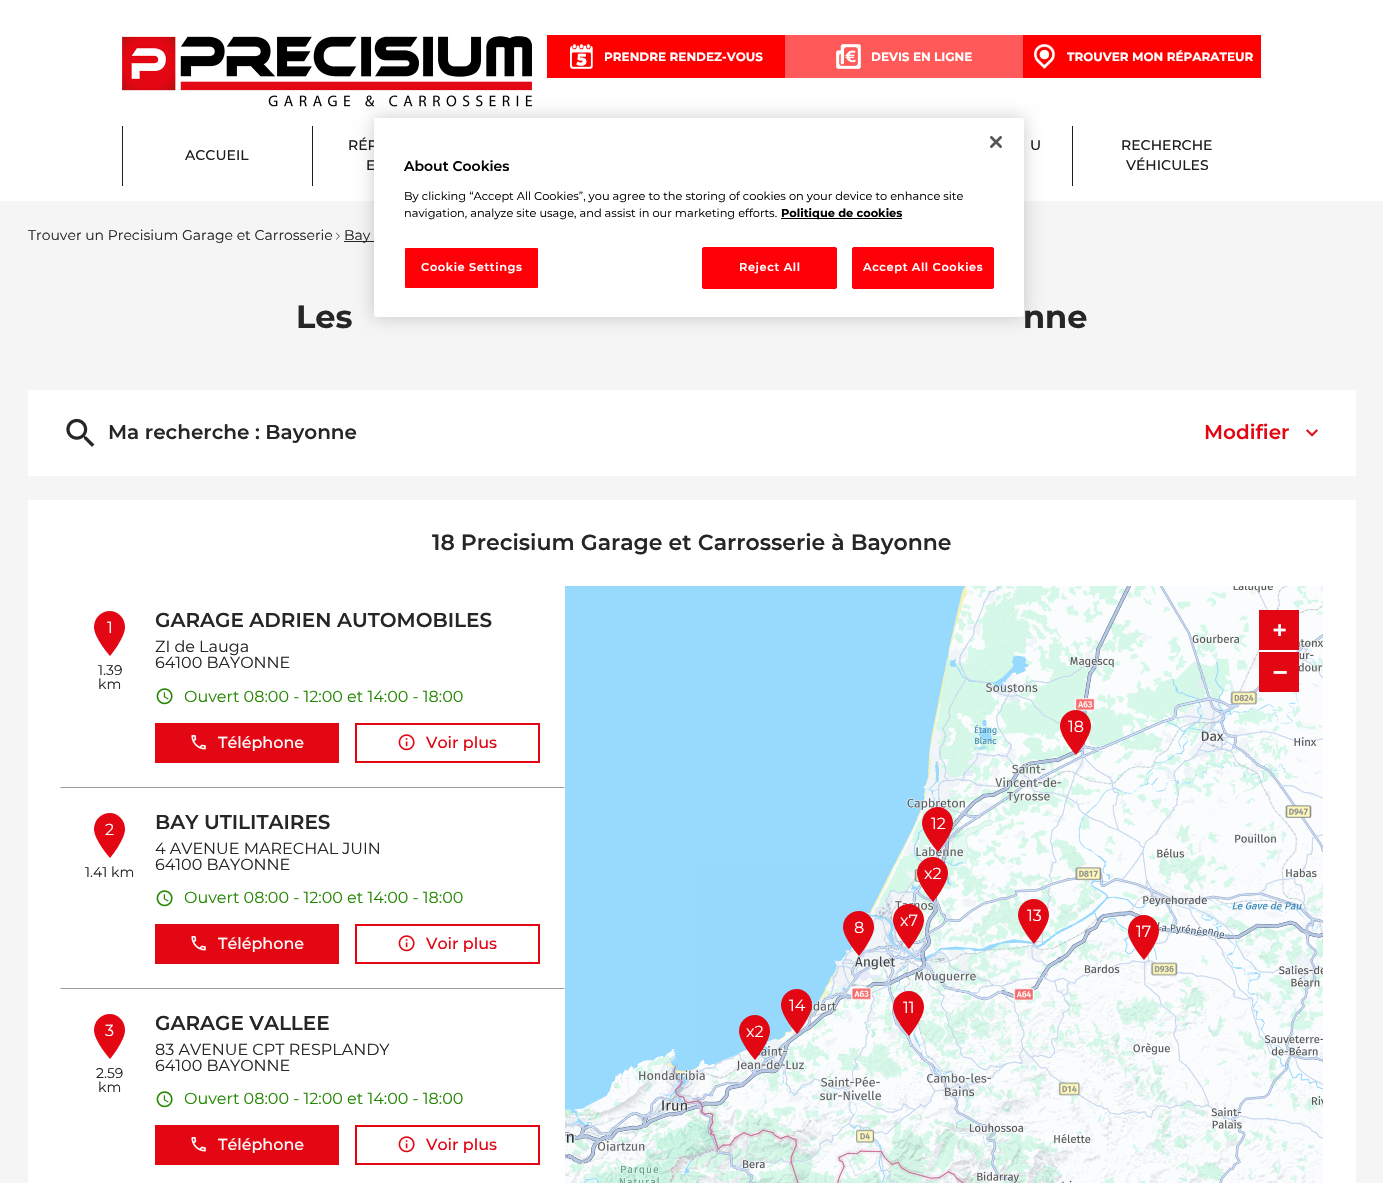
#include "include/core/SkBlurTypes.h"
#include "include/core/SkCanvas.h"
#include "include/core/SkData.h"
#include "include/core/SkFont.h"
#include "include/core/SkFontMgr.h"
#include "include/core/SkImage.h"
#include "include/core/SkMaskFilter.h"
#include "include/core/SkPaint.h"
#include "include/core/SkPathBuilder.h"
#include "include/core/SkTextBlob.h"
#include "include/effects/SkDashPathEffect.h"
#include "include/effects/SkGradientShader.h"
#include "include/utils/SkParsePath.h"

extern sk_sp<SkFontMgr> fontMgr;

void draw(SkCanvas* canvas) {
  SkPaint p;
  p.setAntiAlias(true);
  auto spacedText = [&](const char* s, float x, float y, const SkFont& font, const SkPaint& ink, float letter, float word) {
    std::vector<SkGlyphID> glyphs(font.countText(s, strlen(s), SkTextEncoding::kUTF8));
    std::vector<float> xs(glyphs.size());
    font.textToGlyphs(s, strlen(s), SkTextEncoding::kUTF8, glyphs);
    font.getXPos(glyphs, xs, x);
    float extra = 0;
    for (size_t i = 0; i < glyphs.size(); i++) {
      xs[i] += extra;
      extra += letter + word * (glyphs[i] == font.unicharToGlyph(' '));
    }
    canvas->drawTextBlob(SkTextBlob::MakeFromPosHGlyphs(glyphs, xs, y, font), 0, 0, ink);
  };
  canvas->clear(SkColorSetRGB(245, 245, 245));
  p.setColor(SK_ColorWHITE);
  canvas->drawRect(SkRect::MakeLTRB(0, 0, 1383, 201), p);
  canvas->drawImageRect(SkImages::DeferredFromEncodedData(SkData::MakeFromFileName("images/1.png")), SkRect::MakeLTRB(122, 36, 532, 107), SkSamplingOptions());
  p.setColor(SkColorSetRGB(255, 0, 0));
  canvas->drawRect(SkRect::MakeLTRB(547, 35, 785, 78), p);
  canvas->drawImageRect(SkImages::DeferredFromEncodedData(SkData::MakeFromFileName("images/2.png")), SkRect::MakeLTRB(570, 44, 593, 69), SkSamplingOptions());
  p.setColor(SkColorSetRGB(255, 89, 89));
  canvas->drawRect(SkRect::MakeLTRB(785, 35, 1023, 78), p);
  canvas->drawImageRect(SkImages::DeferredFromEncodedData(SkData::MakeFromFileName("images/3.png")), SkRect::MakeLTRB(836, 44, 861, 69), SkSamplingOptions());
  p.setColor(SkColorSetRGB(255, 0, 0));
  canvas->drawRect(SkRect::MakeLTRB(1023, 35, 1261, 78), p);
  canvas->drawImageRect(SkImages::DeferredFromEncodedData(SkData::MakeFromFileName("images/4.png")), SkRect::MakeLTRB(1034, 44, 1055, 69), SkSamplingOptions());
  p.setColor(SkColorSetRGB(29, 29, 27));
  canvas->drawRect(SkRect::MakeLTRB(122, 126, 123, 186), p);
  canvas->drawRect(SkRect::MakeLTRB(312, 126, 313, 186), p);
  canvas->drawRect(SkRect::MakeLTRB(1072, 126, 1073, 186), p);
  canvas->drawImageRect(SkImages::DeferredFromEncodedData(SkData::MakeFromFileName("images/5.png")), SkRect::MakeLTRB(336, 232, 340, 240), SkSamplingOptions());
  p.setColor(SkColorSetRGB(38, 38, 38));
  canvas->drawRect(SkRect::MakeLTRB(344, 241, 374, 242), p);
  p.setColor(SK_ColorWHITE);
  canvas->drawRect(SkRect::MakeLTRB(28, 390, 1356, 476), p);
  canvas->drawImageRect(SkImages::DeferredFromEncodedData(SkData::MakeFromFileName("images/6.png")), SkRect::MakeLTRB(66, 418, 95, 447), SkSamplingOptions());
  canvas->drawImageRect(SkImages::DeferredFromEncodedData(SkData::MakeFromFileName("images/7.png")), SkRect::MakeLTRB(1306, 429, 1318, 437), SkSamplingOptions());
  canvas->drawRect(SkRect::MakeLTRB(28, 500, 1356, 1183), p);
  p.setColor(SkColorSetRGB(157, 157, 157));
  canvas->drawPath(SkPathBuilder().moveTo(565, 788).lineTo(60, 788).lineTo(61, 787).lineTo(564, 787).close().detach(), p);
  p.setColor(SkColorSetRGB(227, 6, 19));
  canvas->drawPath(SkPathBuilder().moveTo(110, 611).cubicTo(101, 611, 94, 618, 94, 627).cubicTo(94, 638, 110, 656, 110, 656).cubicTo(110, 656, 125, 638, 125, 627).cubicTo(125, 618, 118, 611, 110, 611).close().detach(), p);
  canvas->drawImageRect(SkImages::DeferredFromEncodedData(SkData::MakeFromFileName("images/8.png")), SkRect::MakeLTRB(156, 688, 173, 705), SkSamplingOptions());
  canvas->drawRect(SkRect::MakeLTRB(155, 723, 339, 763), p);
  canvas->drawImageRect(SkImages::DeferredFromEncodedData(SkData::MakeFromFileName("images/9.png")), SkRect::MakeLTRB(191, 735, 206, 750), SkSamplingOptions());
  p.setStyle(SkPaint::kStroke_Style);
  p.setStrokeWidth(2);
  canvas->drawRect(SkRect::MakeLTRB(356, 724, 539, 762), p);
  canvas->drawImageRect(SkImages::DeferredFromEncodedData(SkData::MakeFromFileName("images/10.png")), SkRect::MakeLTRB(398, 734, 415, 751), SkSamplingOptions());
  p.setStyle(SkPaint::kFill_Style);
  p.setColor(SkColorSetRGB(157, 157, 157));
  canvas->drawPath(SkPathBuilder().moveTo(565, 989).lineTo(60, 989).lineTo(61, 988).lineTo(564, 988).close().detach(), p);
  p.setColor(SkColorSetRGB(227, 6, 19));
  canvas->drawPath(SkPathBuilder().moveTo(110, 813).cubicTo(101, 813, 94, 820, 94, 829).cubicTo(94, 840, 110, 858, 110, 858).cubicTo(110, 858, 125, 840, 125, 829).cubicTo(125, 820, 118, 813, 110, 813).close().detach(), p);
  canvas->drawImageRect(SkImages::DeferredFromEncodedData(SkData::MakeFromFileName("images/8.png")), SkRect::MakeLTRB(156, 890, 173, 907), SkSamplingOptions());
  canvas->drawRect(SkRect::MakeLTRB(155, 924, 339, 964), p);
  canvas->drawImageRect(SkImages::DeferredFromEncodedData(SkData::MakeFromFileName("images/9.png")), SkRect::MakeLTRB(191, 936, 206, 951), SkSamplingOptions());
  p.setStyle(SkPaint::kStroke_Style);
  canvas->drawRect(SkRect::MakeLTRB(356, 925, 539, 963), p);
  canvas->drawImageRect(SkImages::DeferredFromEncodedData(SkData::MakeFromFileName("images/10.png")), SkRect::MakeLTRB(398, 935, 415, 952), SkSamplingOptions());
  p.setStyle(SkPaint::kFill_Style);
  canvas->drawPath(SkPathBuilder().moveTo(110, 1014).cubicTo(101, 1014, 94, 1021, 94, 1030).cubicTo(94, 1041, 110, 1059, 110, 1059).cubicTo(110, 1059, 125, 1041, 125, 1030).cubicTo(125, 1021, 118, 1014, 110, 1014).close().detach(), p);
  canvas->drawImageRect(SkImages::DeferredFromEncodedData(SkData::MakeFromFileName("images/8.png")), SkRect::MakeLTRB(156, 1091, 173, 1108), SkSamplingOptions());
  canvas->drawRect(SkRect::MakeLTRB(155, 1125, 339, 1165), p);
  canvas->drawImageRect(SkImages::DeferredFromEncodedData(SkData::MakeFromFileName("images/9.png")), SkRect::MakeLTRB(191, 1137, 206, 1152), SkSamplingOptions());
  p.setStyle(SkPaint::kStroke_Style);
  canvas->drawRect(SkRect::MakeLTRB(356, 1126, 539, 1164), p);
  canvas->drawImageRect(SkImages::DeferredFromEncodedData(SkData::MakeFromFileName("images/10.png")), SkRect::MakeLTRB(398, 1136, 415, 1153), SkSamplingOptions());
  canvas->drawImageRect(SkImages::DeferredFromEncodedData(SkData::MakeFromFileName("images/15.png")), SkRect::MakeLTRB(1210, 608, 1323, 864), SkSamplingOptions());
  p.setStyle(SkPaint::kFill_Style);
  canvas->drawRect(SkRect::MakeLTRB(1259, 610, 1299, 650), p);
  canvas->drawRect(SkRect::MakeLTRB(1259, 652, 1299, 692), p);
  p.setColor(SkColorSetRGB(151, 218, 254));
  canvas->drawRect(SkRect::MakeLTRB(565, 586, 698, 864), p);
  canvas->drawRect(SkRect::MakeLTRB(698, 586, 954, 608), p);
  canvas->drawImageRect(SkImages::DeferredFromEncodedData(SkData::MakeFromFileName("images/11.png")), SkRect::MakeLTRB(954, 586, 1210, 608), SkSamplingOptions());
  canvas->drawImageRect(SkImages::DeferredFromEncodedData(SkData::MakeFromFileName("images/12.png")), SkRect::MakeLTRB(1210, 586, 1323, 608), SkSamplingOptions());
  canvas->drawImageRect(SkImages::DeferredFromEncodedData(SkData::MakeFromFileName("images/13.png")), SkRect::MakeLTRB(698, 608, 954, 864), SkSamplingOptions());
  canvas->drawImageRect(SkImages::DeferredFromEncodedData(SkData::MakeFromFileName("images/14.png")), SkRect::MakeLTRB(954, 608, 1210, 864), SkSamplingOptions());
  canvas->drawImageRect(SkImages::DeferredFromEncodedData(SkData::MakeFromFileName("images/16.png")), SkRect::MakeLTRB(565, 864, 698, 1120), SkSamplingOptions());
  canvas->drawImageRect(SkImages::DeferredFromEncodedData(SkData::MakeFromFileName("images/17.png")), SkRect::MakeLTRB(698, 864, 954, 1120), SkSamplingOptions());
  canvas->drawImageRect(SkImages::DeferredFromEncodedData(SkData::MakeFromFileName("images/18.png")), SkRect::MakeLTRB(954, 864, 1210, 1120), SkSamplingOptions());
  canvas->drawImageRect(SkImages::DeferredFromEncodedData(SkData::MakeFromFileName("images/19.png")), SkRect::MakeLTRB(1210, 864, 1323, 1120), SkSamplingOptions());
  canvas->drawImageRect(SkImages::DeferredFromEncodedData(SkData::MakeFromFileName("images/20.png")), SkRect::MakeLTRB(565, 1120, 698, 1183), SkSamplingOptions());
  canvas->drawImageRect(SkImages::DeferredFromEncodedData(SkData::MakeFromFileName("images/21.png")), SkRect::MakeLTRB(698, 1120, 954, 1183), SkSamplingOptions());
  canvas->drawImageRect(SkImages::DeferredFromEncodedData(SkData::MakeFromFileName("images/22.png")), SkRect::MakeLTRB(954, 1120, 1210, 1183), SkSamplingOptions());
  canvas->drawImageRect(SkImages::DeferredFromEncodedData(SkData::MakeFromFileName("images/23.png")), SkRect::MakeLTRB(1210, 1120, 1323, 1183), SkSamplingOptions());
  p.setColor(SkColorSetRGB(227, 6, 19));
  canvas->drawPath(SkPathBuilder().moveTo(1076, 710).cubicTo(1067, 710, 1060, 717, 1060, 726).cubicTo(1060, 737, 1076, 755, 1076, 755).cubicTo(1076, 755, 1091, 737, 1091, 726).cubicTo(1091, 717, 1084, 710, 1076, 710).close().detach(), p);
  canvas->drawPath(SkPathBuilder().moveTo(938, 807).cubicTo(929, 807, 922, 814, 922, 823).cubicTo(922, 834, 938, 852, 938, 852).cubicTo(938, 852, 953, 834, 953, 823).cubicTo(953, 814, 946, 807, 938, 807).close().detach(), p);
  canvas->drawPath(SkPathBuilder().moveTo(933, 857).cubicTo(924, 857, 917, 864, 917, 873).cubicTo(917, 884, 933, 902, 933, 902).cubicTo(933, 902, 948, 884, 948, 873).cubicTo(948, 864, 941, 857, 933, 857).close().detach(), p);
  canvas->drawPath(SkPathBuilder().moveTo(859, 911).cubicTo(850, 911, 843, 918, 843, 927).cubicTo(843, 938, 859, 956, 859, 956).cubicTo(859, 956, 874, 938, 874, 927).cubicTo(874, 918, 867, 911, 859, 911).close().detach(), p);
  canvas->drawPath(SkPathBuilder().moveTo(909, 904).cubicTo(900, 904, 893, 911, 893, 920).cubicTo(893, 931, 909, 949, 909, 949).cubicTo(909, 949, 924, 931, 924, 920).cubicTo(924, 911, 917, 904, 909, 904).close().detach(), p);
  canvas->drawPath(SkPathBuilder().moveTo(1034, 899).cubicTo(1025, 899, 1018, 906, 1018, 915).cubicTo(1018, 926, 1034, 944, 1034, 944).cubicTo(1034, 944, 1049, 926, 1049, 915).cubicTo(1049, 906, 1042, 899, 1034, 899).close().detach(), p);
  canvas->drawPath(SkPathBuilder().moveTo(1144, 915).cubicTo(1135, 915, 1128, 922, 1128, 931).cubicTo(1128, 942, 1144, 960, 1144, 960).cubicTo(1144, 960, 1159, 942, 1159, 931).cubicTo(1159, 922, 1152, 915, 1144, 915).close().detach(), p);
  canvas->drawPath(SkPathBuilder().moveTo(797, 989).cubicTo(788, 989, 781, 996, 781, 1005).cubicTo(781, 1016, 797, 1034, 797, 1034).cubicTo(797, 1034, 812, 1016, 812, 1005).cubicTo(812, 996, 805, 989, 797, 989).close().detach(), p);
  canvas->drawPath(SkPathBuilder().moveTo(909, 991).cubicTo(900, 991, 893, 998, 893, 1007).cubicTo(893, 1018, 909, 1036, 909, 1036).cubicTo(909, 1036, 924, 1018, 924, 1007).cubicTo(924, 998, 917, 991, 909, 991).close().detach(), p);
  canvas->drawPath(SkPathBuilder().moveTo(755, 1015).cubicTo(746, 1015, 739, 1022, 739, 1031).cubicTo(739, 1042, 755, 1060, 755, 1060).cubicTo(755, 1060, 770, 1042, 770, 1031).cubicTo(770, 1022, 763, 1015, 755, 1015).close().detach(), p);
  p.setColor(SkColorSetARGB(51, 0, 0, 0));
  p.setMaskFilter(SkMaskFilter::MakeBlur(kNormal_SkBlurStyle, 9));
  canvas->drawRoundRect(SkRect::MakeLTRB(374, 118, 1024, 317), 2.5f, 2.5f, p);
  p.setMaskFilter(nullptr);
  SkFont font1(fontMgr->matchFamilyStyle("Montserrat", SkFontStyle::Bold()), 12);
  font1.setSubpixel(true);
  p.setColor(SK_ColorWHITE);
  canvas->drawString("PRENDRE RENDEZ-VOUS", 604, 61, font1, p);
  canvas->drawString("DEVIS EN LIGNE", 871, 61, font1, p);
  canvas->drawString("TROUVER MON RÉPARATEUR", 1067, 61, font1, p);
  SkFont font2(fontMgr->matchFamilyStyle("Montserrat", SkFontStyle(500, SkFontStyle::kNormal_Width, SkFontStyle::kUpright_Slant)), 14);
  font2.setSubpixel(true);
  p.setColor(SkColorSetRGB(29, 29, 27));
  canvas->drawString("ACCUEIL", 185, 160, font2, p);
  canvas->drawString("RÉP", 348, 150, font2, p);
  canvas->drawString("E", 366, 170, font2, p);
  canvas->drawString("U", 1030, 150, font2, p);
  canvas->drawString("RECHERCHE", 1121, 150, font2, p);
  canvas->drawString("VÉHICULES", 1126, 170, font2, p);
  SkFont font3(fontMgr->matchFamilyStyle("Montserrat", SkFontStyle::Normal()), 14);
  font3.setSubpixel(true);
  p.setColor(SkColorSetRGB(38, 38, 38));
  canvas->drawString("Trouver un Precisium Garage et Carrosserie", 28, 240, font3, p);
  canvas->drawString("Bay", 344, 240, font3, p);
  SkFont font4(fontMgr->matchFamilyStyle("Montserrat", SkFontStyle::Bold()), 32);
  font4.setSubpixel(true);
  canvas->drawString("Les", 296, 328, font4, p);
  canvas->drawString("nne", 1023, 328, font4, p);
  SkFont font5(fontMgr->matchFamilyStyle("Montserrat", SkFontStyle(600, SkFontStyle::kNormal_Width, SkFontStyle::kUpright_Slant)), 20);
  font5.setSubpixel(true);
  canvas->drawString("Ma recherche : Bayonne", 108, 439, font5, p);
  p.setColor(SkColorSetRGB(227, 6, 19));
  canvas->drawString("Modifier", 1204, 439, font5, p);
  SkFont font6(fontMgr->matchFamilyStyle("Montserrat", SkFontStyle(600, SkFontStyle::kNormal_Width, SkFontStyle::kUpright_Slant)), 22);
  font6.setSubpixel(true);
  p.setColor(SkColorSetRGB(38, 38, 38));
  canvas->drawString("18 Precisium Garage et Carrosserie à Bayonne", 432, 550, font6, p);
  SkFont font7(fontMgr->matchFamilyStyle("Montserrat", SkFontStyle::Normal()), 16);
  font7.setSubpixel(true);
  p.setColor(SK_ColorWHITE);
  canvas->drawString("1", 107, 633, font7, p);
  p.setColor(SkColorSetRGB(38, 38, 38));
  canvas->drawString("1.39", 98, 675, font3, p);
  canvas->drawString("km", 98, 689, font3, p);
  canvas->drawString("GARAGE ADRIEN AUTOMOBILES", 155, 627, font5, p);
  canvas->drawString("ZI de Lauga", 155, 652, font7, p);
  canvas->drawString("64100 BAYONNE", 155, 668, font7, p);
  p.setColor(SkColorSetRGB(35, 135, 0));
  canvas->drawString("Ouvert 08:00 - 12:00 et 14:00 - 18:00", 184, 702, font7, p);
  SkFont font8(fontMgr->matchFamilyStyle("Montserrat", SkFontStyle(500, SkFontStyle::kNormal_Width, SkFontStyle::kUpright_Slant)), 16);
  font8.setSubpixel(true);
  p.setColor(SK_ColorWHITE);
  canvas->drawString("Téléphone", 218, 748, font8, p);
  p.setColor(SkColorSetRGB(227, 6, 19));
  canvas->drawString("Voir plus", 426, 748, font8, p);
  p.setColor(SK_ColorWHITE);
  canvas->drawString("2", 105, 835, font7, p);
  p.setColor(SkColorSetRGB(38, 38, 38));
  canvas->drawString("1.41 km", 85, 877, font3, p);
  canvas->drawString("BAY UTILITAIRES", 155, 829, font5, p);
  canvas->drawString("4 AVENUE MARECHAL JUIN", 155, 854, font7, p);
  canvas->drawString("64100 BAYONNE", 155, 870, font7, p);
  p.setColor(SkColorSetRGB(35, 135, 0));
  canvas->drawString("Ouvert 08:00 - 12:00 et 14:00 - 18:00", 184, 903, font7, p);
  p.setColor(SK_ColorWHITE);
  canvas->drawString("Téléphone", 218, 949, font8, p);
  p.setColor(SkColorSetRGB(227, 6, 19));
  canvas->drawString("Voir plus", 426, 949, font8, p);
  p.setColor(SK_ColorWHITE);
  canvas->drawString("3", 105, 1036, font7, p);
  p.setColor(SkColorSetRGB(38, 38, 38));
  canvas->drawString("2.59", 96, 1078, font3, p);
  canvas->drawString("km", 98, 1092, font3, p);
  canvas->drawString("GARAGE VALLEE", 155, 1030, font5, p);
  canvas->drawString("83 AVENUE CPT RESPLANDY", 155, 1055, font7, p);
  canvas->drawString("64100 BAYONNE", 155, 1071, font7, p);
  p.setColor(SkColorSetRGB(35, 135, 0));
  canvas->drawString("Ouvert 08:00 - 12:00 et 14:00 - 18:00", 184, 1104, font7, p);
  p.setColor(SK_ColorWHITE);
  canvas->drawString("Téléphone", 218, 1150, font8, p);
  p.setColor(SkColorSetRGB(227, 6, 19));
  canvas->drawString("Voir plus", 426, 1150, font8, p);
  SkFont font9(fontMgr->matchFamilyStyle("DejaVu Sans Mono", SkFontStyle::Bold()), 22);
  font9.setSubpixel(true);
  p.setColor(SK_ColorWHITE);
  canvas->drawString("+", 1273, 637, font9, p);
  SkFont font10(fontMgr->matchFamilyStyle("DejaVu Sans Mono", SkFontStyle::Bold()), 24);
  font10.setSubpixel(true);
  canvas->drawString("−", 1273, 680, font10, p);
  canvas->drawString("18", 1068, 732, font7, p);
  canvas->drawString("12", 931, 829, font7, p);
  canvas->drawString("x2", 924, 879, font7, p);
  canvas->drawString("8", 854, 933, font7, p);
  canvas->drawString("x7", 900, 926, font7, p);
  canvas->drawString("13", 1027, 921, font7, p);
  canvas->drawString("17", 1136, 937, font7, p);
  canvas->drawString("14", 789, 1011, font7, p);
  canvas->drawString("11", 903, 1013, font7, p);
  canvas->drawString("x2", 746, 1037, font7, p);
  canvas->drawRoundRect(SkRect::MakeLTRB(374, 118, 1024, 317), 2.5f, 2.5f, p);
  canvas->drawImageRect(SkImages::DeferredFromEncodedData(SkData::MakeFromFileName("images/24.png")), SkRect::MakeLTRB(990, 136, 1002, 148), SkSamplingOptions());
  SkFont font11(fontMgr->matchFamilyStyle("Montserrat", SkFontStyle(600, SkFontStyle::kNormal_Width, SkFontStyle::kUpright_Slant)), 14);
  font11.setSubpixel(true);
  p.setColor(SK_ColorBLACK);
  canvas->drawString("About Cookies", 404, 171, font11, p);
  SkFont font12(fontMgr->matchFamilyStyle("Montserrat", SkFontStyle::Normal()), 11.4f);
  font12.setSubpixel(true);
  canvas->drawString("By clicking “Accept All Cookies”, you agree to the storing of cookies on your device to enhance site", 404, 200, font12, p);
  canvas->drawString("navigation, analyze site usage, and assist in our marketing efforts.", 404, 217, font12, p);
  canvas->drawRect(SkRect::MakeLTRB(781, 218, 902, 219), p);
  SkFont font13(fontMgr->matchFamilyStyle("Montserrat", SkFontStyle::Bold()), 11.4f);
  font13.setSubpixel(true);
  canvas->drawString("Politique de cookies", 781, 217, font13, p);
  p.setColor(SkColorSetRGB(255, 0, 8));
  canvas->drawRoundRect(SkRect::MakeLTRB(404.5f, 247.5f, 538.5f, 288.5f), 1.5f, 1.5f, p);
  p.setStyle(SkPaint::kStroke_Style);
  p.setStrokeWidth(1);
  p.setColor(SK_ColorWHITE);
  canvas->drawRoundRect(SkRect::MakeLTRB(404.5f, 247.5f, 538.5f, 288.5f), 1.5f, 1.5f, p);
  SkFont font14(fontMgr->matchFamilyStyle("Montserrat", SkFontStyle(600, SkFontStyle::kNormal_Width, SkFontStyle::kUpright_Slant)), 11.4f);
  font14.setSubpixel(true);
  p.setStyle(SkPaint::kFill_Style);
  spacedText("Cookie Settings", 421, 271, font14, p, 0.6f, 0);
  p.setColor(SkColorSetRGB(255, 0, 8));
  canvas->drawRoundRect(SkRect::MakeLTRB(702.5f, 247.5f, 836.5f, 288.5f), 1.5f, 1.5f, p);
  p.setStyle(SkPaint::kStroke_Style);
  canvas->drawRoundRect(SkRect::MakeLTRB(702.5f, 247.5f, 836.5f, 288.5f), 1.5f, 1.5f, p);
  p.setStyle(SkPaint::kFill_Style);
  p.setColor(SK_ColorWHITE);
  spacedText("Reject All", 739, 271, font14, p, 0.6f, 0);
  p.setColor(SkColorSetRGB(255, 0, 8));
  canvas->drawRoundRect(SkRect::MakeLTRB(852.5f, 247.5f, 993.5f, 288.5f), 1.5f, 1.5f, p);
  p.setStyle(SkPaint::kStroke_Style);
  canvas->drawRoundRect(SkRect::MakeLTRB(852.5f, 247.5f, 993.5f, 288.5f), 1.5f, 1.5f, p);
  p.setStyle(SkPaint::kFill_Style);
  p.setColor(SK_ColorWHITE);
  spacedText("Accept All Cookies", 863, 271, font14, p, 0.6f, 0);
}
